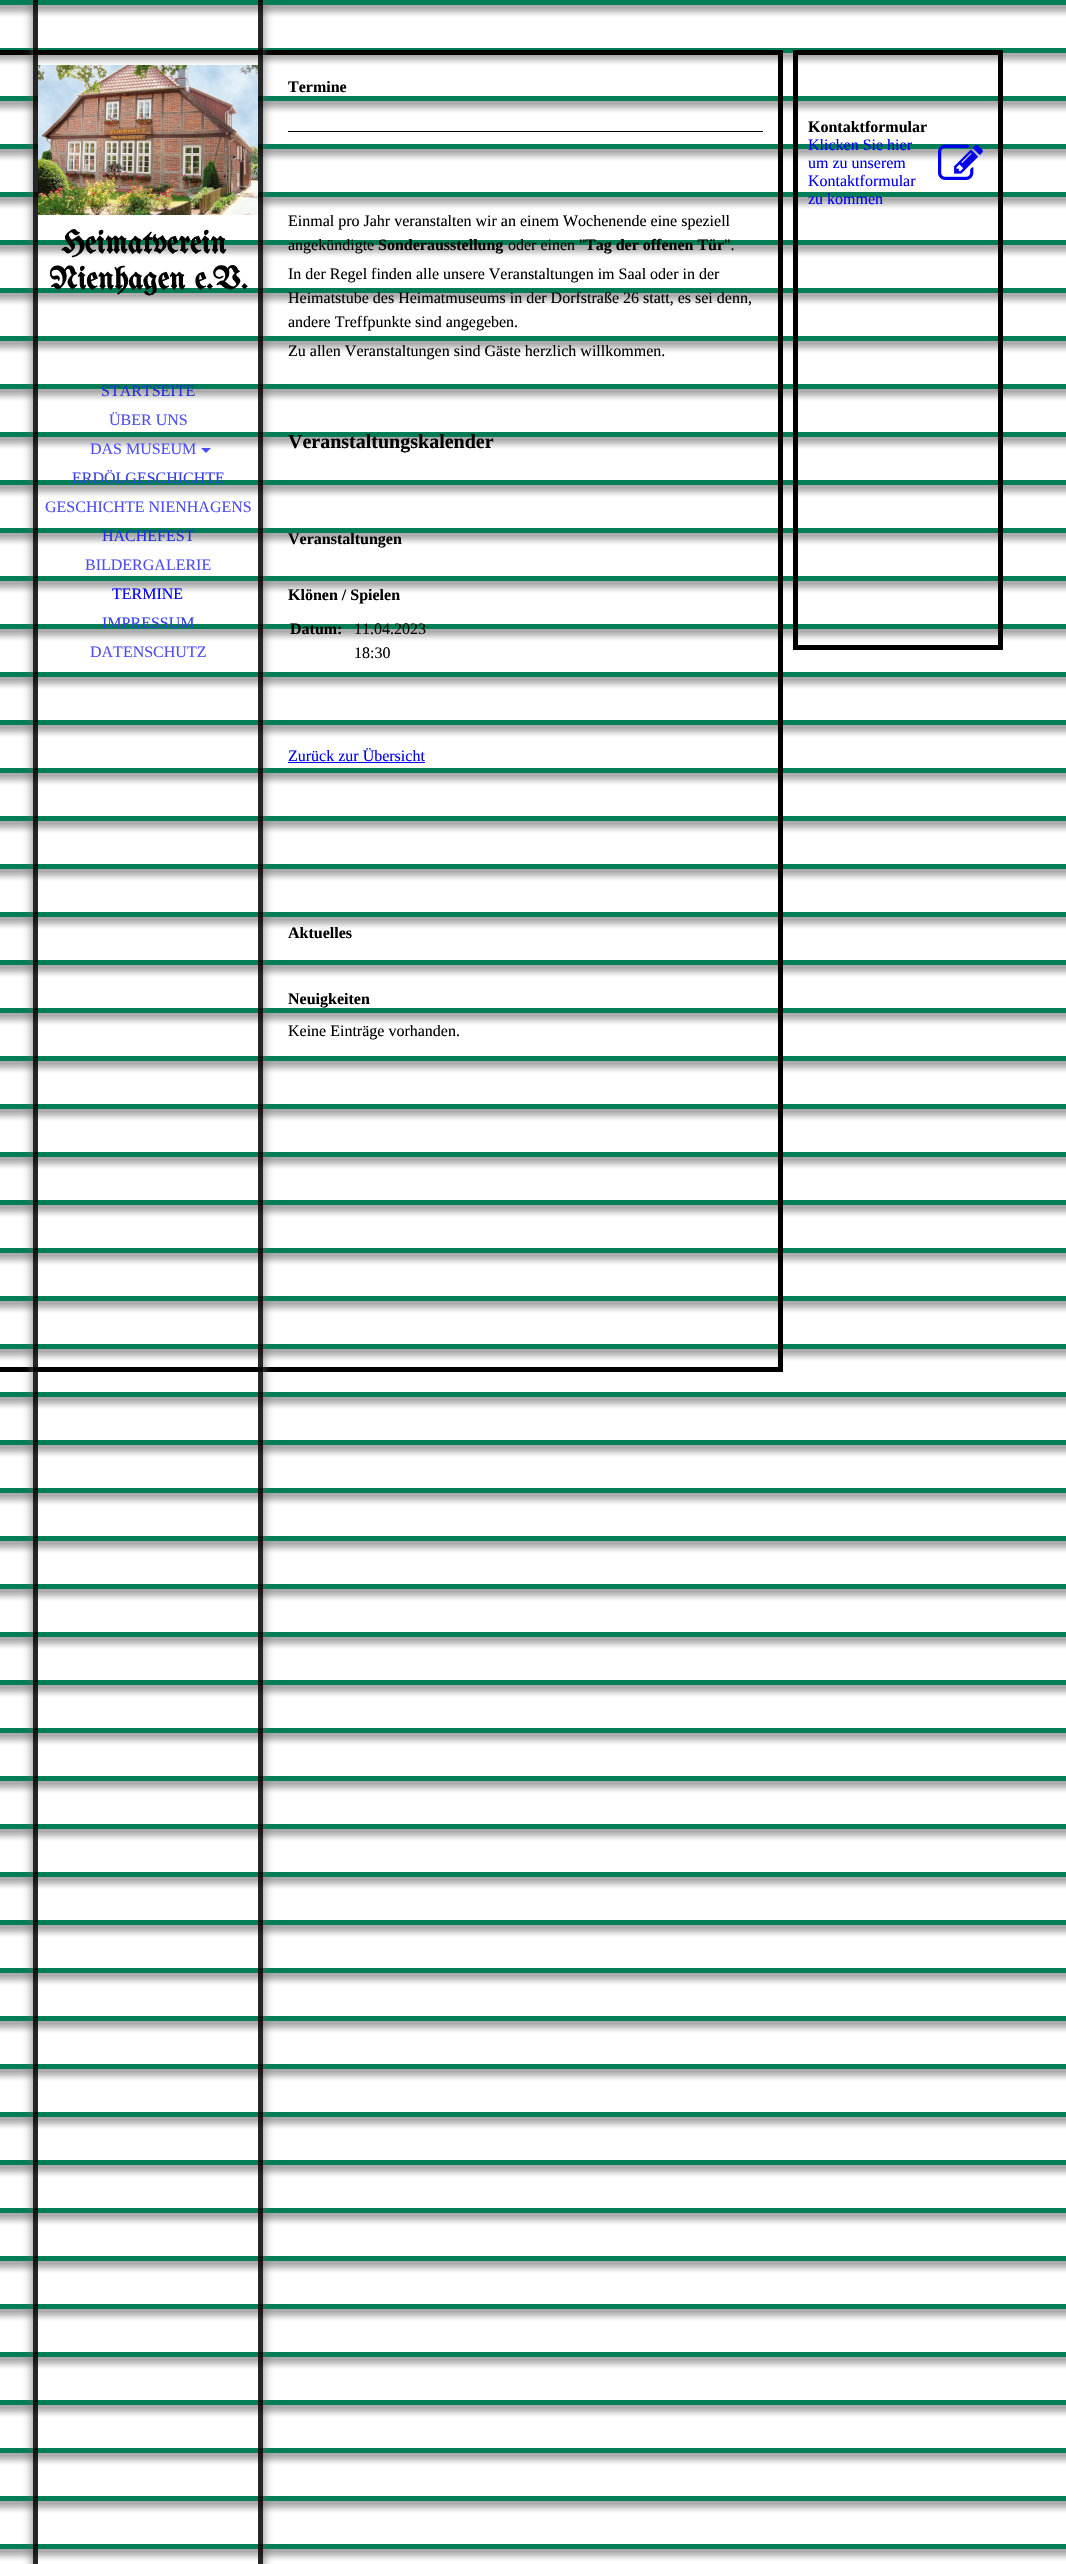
#include "include/core/SkBlurTypes.h"
#include "include/core/SkCanvas.h"
#include "include/core/SkData.h"
#include "include/core/SkFont.h"
#include "include/core/SkFontMgr.h"
#include "include/core/SkImage.h"
#include "include/core/SkMaskFilter.h"
#include "include/core/SkPaint.h"
#include "include/core/SkPathBuilder.h"
#include "include/core/SkTextBlob.h"
#include "include/effects/SkDashPathEffect.h"
#include "include/effects/SkGradientShader.h"
#include "include/utils/SkParsePath.h"

extern sk_sp<SkFontMgr> fontMgr;

void draw(SkCanvas* canvas) {
  SkPaint p;
  p.setAntiAlias(true);
  canvas->clear(SK_ColorWHITE);
  canvas->drawImageRect(SkImages::DeferredFromEncodedData(SkData::MakeFromFileName("images/1.png")), SkRect::MakeLTRB(0, 0, 1066, 2561), SkSamplingOptions());
  p.setStyle(SkPaint::kStroke_Style);
  p.setStrokeWidth(5);
  p.setColor(SK_ColorBLACK);
  canvas->drawRect(SkRect::MakeLTRB(-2.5f, 52.5f, 780.5f, 1369.5f), p);
  canvas->save();
  canvas->clipPath(SkPathBuilder(SkPathFillType::kEvenOdd).moveTo(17, 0).lineTo(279, 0).lineTo(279, 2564).lineTo(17, 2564).close().moveTo(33, 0).lineTo(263, 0).lineTo(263, 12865).lineTo(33, 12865).close().detach(), true);
  p.setStyle(SkPaint::kFill_Style);
  p.setColor(SkColorSetARGB(217, 102, 102, 102));
  p.setMaskFilter(SkMaskFilter::MakeBlur(kNormal_SkBlurStyle, 5));
  canvas->drawRect(SkRect::MakeLTRB(33, 0, 263, 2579), p);
  p.setMaskFilter(nullptr);
  canvas->restore();
  p.setColor(SkColorSetARGB(217, 0, 0, 0));
  canvas->drawRect(SkRect::MakeLTRB(258, 0, 263, 2564), p);
  canvas->drawRect(SkRect::MakeLTRB(33, 0, 38, 2564), p);
  p.setColor(SK_ColorBLACK);
  canvas->drawRect(SkRect::MakeLTRB(288, 131, 763, 132), p);
  p.setColor(SkColorSetRGB(0, 0, 238));
  canvas->drawRect(SkRect::MakeLTRB(288, 762, 425, 763), p);
  p.setStyle(SkPaint::kStroke_Style);
  p.setColor(SK_ColorBLACK);
  canvas->drawRect(SkRect::MakeLTRB(795.5f, 52.5f, 1000.5f, 647.5f), p);
  canvas->drawImageRect(SkImages::DeferredFromEncodedData(SkData::MakeFromFileName("images/2.png")), SkRect::MakeLTRB(938, 144, 983, 180), SkSamplingOptions());
  canvas->drawImageRect(SkImages::DeferredFromEncodedData(SkData::MakeFromFileName("images/3.png")), SkRect::MakeLTRB(38, 65, 258, 215), SkSamplingOptions());
  p.setStyle(SkPaint::kFill_Style);
  p.setColor(SkColorSetARGB(179, 0, 0, 238));
  canvas->drawPath(SkPathBuilder().moveTo(201, 448).lineTo(211, 448).lineTo(206, 453).close().detach(), p);
  SkFont font1(fontMgr->matchFamilyStyle("Liberation Serif", SkFontStyle::Bold()), 16);
  font1.setSubpixel(true);
  p.setColor(SK_ColorBLACK);
  canvas->drawString("Termine", 288, 92, font1, p);
  SkFont font2(fontMgr->matchFamilyStyle("Liberation Serif", SkFontStyle::Normal()), 16);
  font2.setSubpixel(true);
  canvas->drawString("Einmal pro Jahr veranstalten wir an einem Wochenende eine speziell", 288, 226, font2, p);
  canvas->drawString("angekündigte", 288, 250, font2, p);
  canvas->drawString("Sonderausstellung", 378, 250, font1, p);
  canvas->drawString("oder einen \"", 508, 250, font2, p);
  canvas->drawString("Tag der offenen Tür", 585, 250, font1, p);
  canvas->drawString("\".", 724, 250, font2, p);
  canvas->drawString("In der Regel finden alle unsere Veranstaltungen im Saal oder in der", 288, 279, font2, p);
  canvas->drawString("Heimatstube des Heimatmuseums in der Dorfstraße 26 statt, es sei denn,", 288, 303, font2, p);
  canvas->drawString("andere Treffpunkte sind angegeben.", 288, 327, font2, p);
  canvas->drawString("Zu allen Veranstaltungen sind Gäste herzlich willkommen.", 288, 356, font2, p);
  SkFont font3(fontMgr->matchFamilyStyle("Liberation Serif", SkFontStyle::Bold()), 20);
  font3.setSubpixel(true);
  canvas->drawString("Veranstaltungskalender", 288, 448, font3, p);
  canvas->drawString("Veranstaltungen", 288, 544, font1, p);
  canvas->drawString("Klönen / Spielen", 288, 600, font1, p);
  canvas->drawString("Datum:", 290, 634, font1, p);
  canvas->drawString("11.04.2023", 354, 634, font2, p);
  canvas->drawString("18:30", 354, 658, font2, p);
  p.setColor(SkColorSetRGB(0, 0, 238));
  canvas->drawString("Zurück zur Übersicht", 288, 761, font2, p);
  p.setColor(SK_ColorBLACK);
  canvas->drawString("Aktuelles", 288, 938, font1, p);
  canvas->drawString("Neuigkeiten", 288, 1004, font1, p);
  canvas->drawString("Keine Einträge vorhanden.", 288, 1036, font2, p);
  canvas->drawString("Kontaktformular", 808, 132, font1, p);
  p.setColor(SkColorSetRGB(0, 0, 238));
  canvas->drawString("Klicken Sie hier", 808, 150, font2, p);
  canvas->drawString("um zu unserem", 808, 168, font2, p);
  canvas->drawString("Kontaktformular", 808, 186, font2, p);
  canvas->drawString("zu kommen", 808, 204, font2, p);
  SkFont font4(fontMgr->matchFamilyStyle("UnifrakturMaguntia", SkFontStyle::Bold()), 32);
  font4.setSubpixel(true);
  p.setColor(SK_ColorBLACK);
  canvas->drawString("Heimatverein", 61, 253, font4, p);
  canvas->drawString("Nienhagen e.V.", 49, 289, font4, p);
  p.setColor(SkColorSetRGB(33, 48, 210));
  canvas->drawString("STARTSEITE", 101, 396, font2, p);
  p.setColor(SkColorSetRGB(77, 77, 243));
  canvas->drawString("ÜBER UNS", 109, 425, font2, p);
  canvas->drawString("DAS MUSEUM", 90, 454, font2, p);
  p.setColor(SkColorSetRGB(53, 64, 227));
  canvas->drawString("ERDÖLGESCHICHTE", 72, 483, font2, p);
  p.setColor(SkColorSetRGB(77, 77, 243));
  canvas->drawString("GESCHICHTE NIENHAGENS", 45, 512, font2, p);
  p.setColor(SkColorSetRGB(33, 48, 210));
  canvas->drawString("HACHEFEST", 102, 541, font2, p);
  p.setColor(SkColorSetRGB(77, 77, 243));
  canvas->drawString("BILDERGALERIE", 85, 570, font2, p);
  p.setColor(SkColorSetRGB(0, 0, 238));
  canvas->drawString("TERMINE", 112, 599, font2, p);
  p.setColor(SkColorSetRGB(53, 64, 227));
  canvas->drawString("IMPRESSUM", 102, 628, font2, p);
  p.setColor(SkColorSetRGB(77, 77, 243));
  canvas->drawString("DATENSCHUTZ", 90, 657, font2, p);
}
